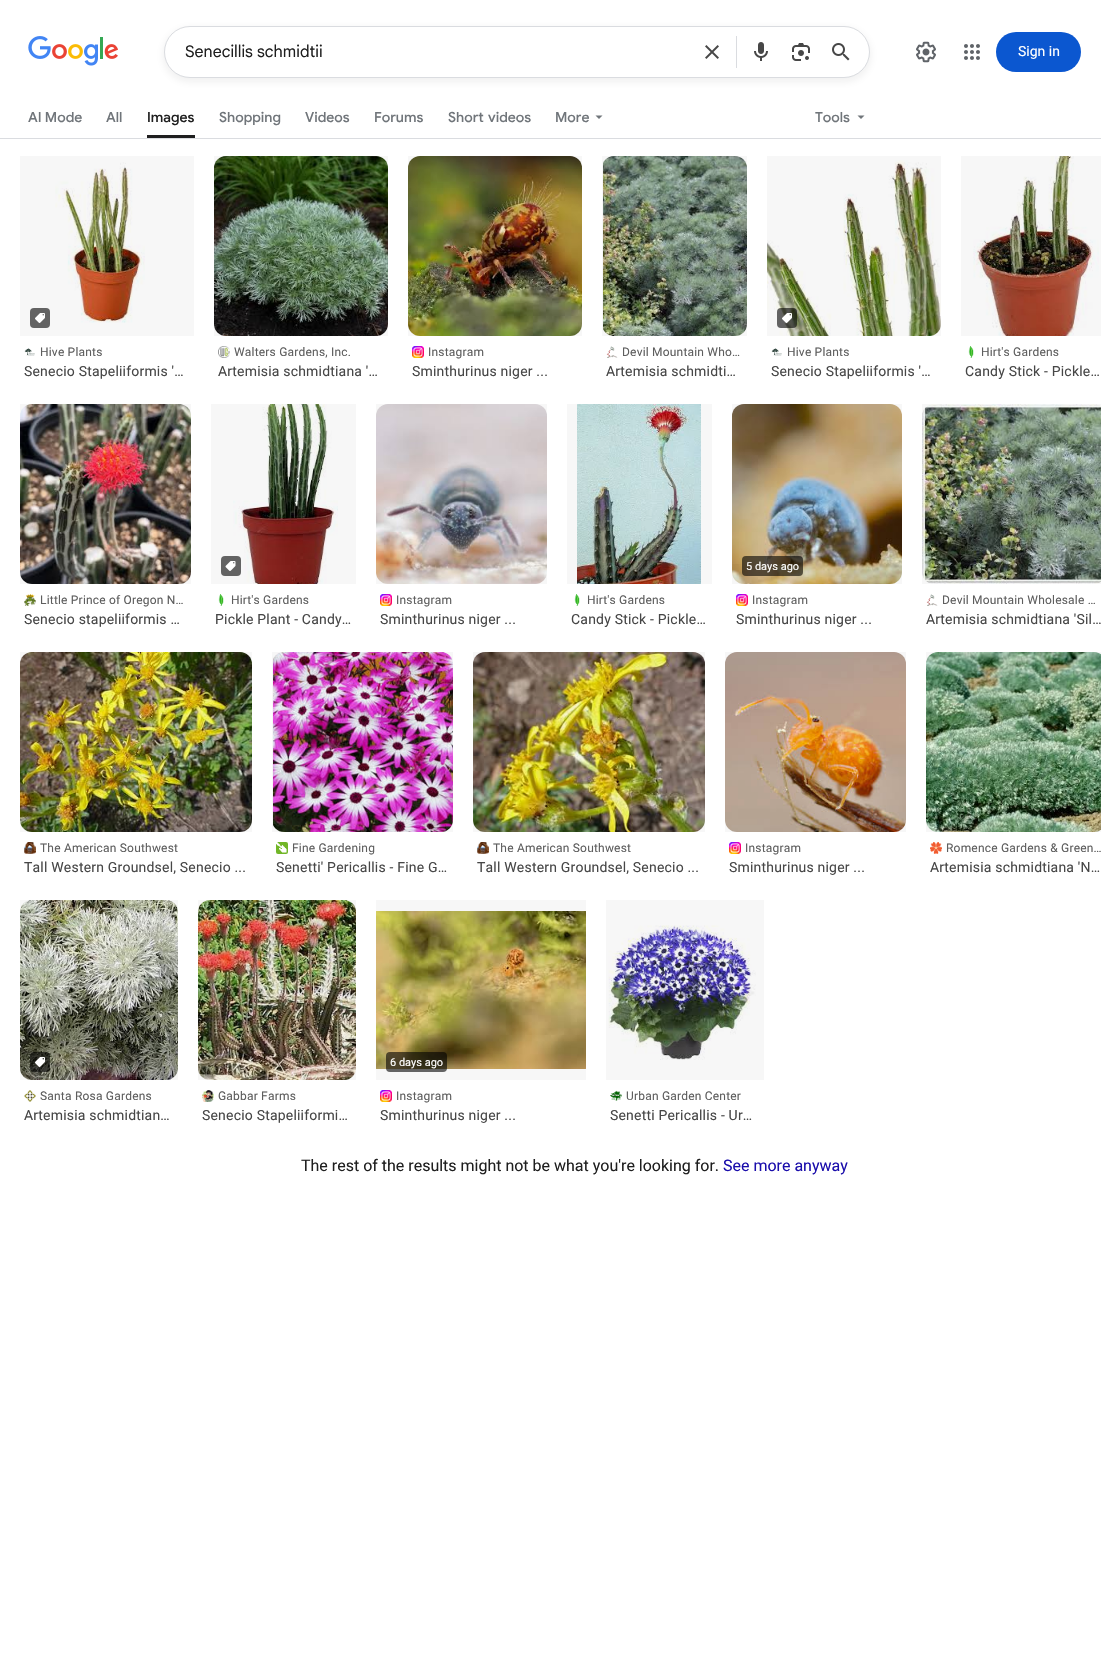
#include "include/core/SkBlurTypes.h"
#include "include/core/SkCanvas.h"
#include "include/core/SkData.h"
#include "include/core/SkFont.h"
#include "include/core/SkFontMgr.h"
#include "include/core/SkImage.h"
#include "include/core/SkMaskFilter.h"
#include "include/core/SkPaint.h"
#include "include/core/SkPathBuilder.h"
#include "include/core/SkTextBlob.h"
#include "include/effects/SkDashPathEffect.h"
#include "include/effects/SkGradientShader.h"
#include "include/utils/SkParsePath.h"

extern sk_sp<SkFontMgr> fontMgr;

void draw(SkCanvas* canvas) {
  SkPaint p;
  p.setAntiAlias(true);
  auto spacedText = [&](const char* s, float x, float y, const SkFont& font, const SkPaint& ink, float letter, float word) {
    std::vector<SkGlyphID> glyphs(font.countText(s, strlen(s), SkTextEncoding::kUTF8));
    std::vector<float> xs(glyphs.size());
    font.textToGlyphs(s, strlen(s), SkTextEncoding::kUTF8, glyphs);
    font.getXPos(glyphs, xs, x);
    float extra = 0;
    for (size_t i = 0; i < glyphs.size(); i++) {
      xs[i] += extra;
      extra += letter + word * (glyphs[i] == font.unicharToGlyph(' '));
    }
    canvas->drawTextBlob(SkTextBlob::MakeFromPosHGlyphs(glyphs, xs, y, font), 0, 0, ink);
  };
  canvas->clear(SK_ColorWHITE);
  canvas->drawImageRect(SkImages::DeferredFromEncodedData(SkData::MakeFromFileName("images/1.png")), SkRect::MakeLTRB(28, 36, 118, 66), SkSamplingOptions());
  p.setColor(SkColorSetARGB(20, 31, 31, 31));
  p.setMaskFilter(SkMaskFilter::MakeBlur(kNormal_SkBlurStyle, 5));
  canvas->drawRoundRect(SkRect::MakeLTRB(164, 29, 870, 81), 26, 26, p);
  p.setMaskFilter(nullptr);
  p.setColor(SK_ColorWHITE);
  canvas->drawRoundRect(SkRect::MakeLTRB(164.5f, 26.5f, 869.5f, 77.5f), 25.5f, 25.5f, p);
  p.setStyle(SkPaint::kStroke_Style);
  p.setStrokeWidth(1);
  p.setColor(SkColorSetRGB(218, 220, 224));
  canvas->drawRoundRect(SkRect::MakeLTRB(164.5f, 26.5f, 869.5f, 77.5f), 25.5f, 25.5f, p);
  canvas->drawImageRect(SkImages::DeferredFromEncodedData(SkData::MakeFromFileName("images/2.png")), SkRect::MakeLTRB(705, 45, 719, 59), SkSamplingOptions());
  p.setStyle(SkPaint::kFill_Style);
  canvas->drawRect(SkRect::MakeLTRB(736, 36, 737, 68), p);
  canvas->drawImageRect(SkImages::DeferredFromEncodedData(SkData::MakeFromFileName("images/3.png")), SkRect::MakeLTRB(754, 42, 768, 61), SkSamplingOptions());
  canvas->drawImageRect(SkImages::DeferredFromEncodedData(SkData::MakeFromFileName("images/4.png")), SkRect::MakeLTRB(792, 43, 810, 61), SkSamplingOptions());
  canvas->drawImageRect(SkImages::DeferredFromEncodedData(SkData::MakeFromFileName("images/5.png")), SkRect::MakeLTRB(832, 43, 850, 61), SkSamplingOptions());
  canvas->drawImageRect(SkImages::DeferredFromEncodedData(SkData::MakeFromFileName("images/6.png")), SkRect::MakeLTRB(916, 41, 936, 63), SkSamplingOptions());
  canvas->drawImageRect(SkImages::DeferredFromEncodedData(SkData::MakeFromFileName("images/7.png")), SkRect::MakeLTRB(964, 44, 980, 60), SkSamplingOptions());
  p.setColor(SkColorSetRGB(11, 87, 208));
  canvas->drawRoundRect(SkRect::MakeLTRB(996, 32, 1081, 72), 20, 20, p);
  p.setColor(SkColorSetRGB(31, 31, 31));
  canvas->drawRect(SkRect::MakeLTRB(147, 135, 195, 138), p);
  p.setColor(SkColorSetRGB(112, 117, 122));
  canvas->drawPath(SkPathBuilder().moveTo(595.5f, 115.5f).lineTo(599, 119).lineTo(602.5f, 115.5f).close().detach(), p);
  canvas->drawPath(SkPathBuilder().moveTo(857.5f, 115.5f).lineTo(861, 119).lineTo(864.5f, 115.5f).close().detach(), p);
  p.setColor(SkColorSetRGB(218, 220, 224));
  canvas->drawRect(SkRect::MakeLTRB(0, 138, 1101, 139), p);
  canvas->drawImageRect(SkImages::DeferredFromEncodedData(SkData::MakeFromFileName("images/8.png")), SkRect::MakeLTRB(55, 162, 145, 323), SkSamplingOptions());
  p.setColor(SkColorSetARGB(8, 0, 0, 0));
  canvas->drawRect(SkRect::MakeLTRB(20, 156, 194, 336), p);
  p.setColor(SkColorSetRGB(99, 99, 99));
  canvas->drawRoundRect(SkRect::MakeLTRB(30, 308, 50, 328), 4, 4, p);
  canvas->drawImageRect(SkImages::DeferredFromEncodedData(SkData::MakeFromFileName("images/9.png")), SkRect::MakeLTRB(35, 313, 45, 323), SkSamplingOptions());
  canvas->drawImageRect(SkImages::DeferredFromEncodedData(SkData::MakeFromFileName("images/10.png")), SkRect::MakeLTRB(24, 348, 35, 356), SkSamplingOptions());
  canvas->drawImageRect(SkImages::DeferredFromEncodedData(SkData::MakeFromFileName("images/11.png")), SkRect::MakeLTRB(214, 156, 388, 336), SkSamplingOptions());
  p.setColor(SkColorSetARGB(8, 0, 0, 0));
  canvas->drawRect(SkRect::MakeLTRB(214, 156, 388, 336), p);
  canvas->drawImageRect(SkImages::DeferredFromEncodedData(SkData::MakeFromFileName("images/12.png")), SkRect::MakeLTRB(218, 346, 230, 358), SkSamplingOptions());
  canvas->drawImageRect(SkImages::DeferredFromEncodedData(SkData::MakeFromFileName("images/13.png")), SkRect::MakeLTRB(408, 156, 582, 336), SkSamplingOptions());
  canvas->drawRect(SkRect::MakeLTRB(408, 156, 582, 336), p);
  canvas->drawImageRect(SkImages::DeferredFromEncodedData(SkData::MakeFromFileName("images/14.png")), SkRect::MakeLTRB(412, 346, 424, 358), SkSamplingOptions());
  canvas->drawImageRect(SkImages::DeferredFromEncodedData(SkData::MakeFromFileName("images/15.png")), SkRect::MakeLTRB(603, 156, 747, 336), SkSamplingOptions());
  canvas->drawRect(SkRect::MakeLTRB(602, 156, 747, 336), p);
  canvas->drawImageRect(SkImages::DeferredFromEncodedData(SkData::MakeFromFileName("images/16.png")), SkRect::MakeLTRB(606, 346, 618, 358), SkSamplingOptions());
  canvas->drawImageRect(SkImages::DeferredFromEncodedData(SkData::MakeFromFileName("images/17.png")), SkRect::MakeLTRB(767, 160, 941, 336), SkSamplingOptions());
  canvas->drawRect(SkRect::MakeLTRB(767, 156, 941, 336), p);
  p.setColor(SkColorSetARGB(153, 0, 0, 0));
  canvas->drawRoundRect(SkRect::MakeLTRB(777, 308, 797, 328), 4, 4, p);
  canvas->drawImageRect(SkImages::DeferredFromEncodedData(SkData::MakeFromFileName("images/18.png")), SkRect::MakeLTRB(782, 313, 792, 323), SkSamplingOptions());
  canvas->drawImageRect(SkImages::DeferredFromEncodedData(SkData::MakeFromFileName("images/10.png")), SkRect::MakeLTRB(771, 348, 782, 356), SkSamplingOptions());
  canvas->drawImageRect(SkImages::DeferredFromEncodedData(SkData::MakeFromFileName("images/19.png")), SkRect::MakeLTRB(973, 156, 1099, 336), SkSamplingOptions());
  p.setColor(SkColorSetARGB(8, 0, 0, 0));
  canvas->drawRect(SkRect::MakeLTRB(961, 156, 1101, 336), p);
  canvas->drawImageRect(SkImages::DeferredFromEncodedData(SkData::MakeFromFileName("images/20.png")), SkRect::MakeLTRB(968, 346, 974, 358), SkSamplingOptions());
  canvas->drawImageRect(SkImages::DeferredFromEncodedData(SkData::MakeFromFileName("images/21.png")), SkRect::MakeLTRB(20, 404, 191, 584), SkSamplingOptions());
  canvas->drawRect(SkRect::MakeLTRB(20, 404, 191, 584), p);
  canvas->drawImageRect(SkImages::DeferredFromEncodedData(SkData::MakeFromFileName("images/22.png")), SkRect::MakeLTRB(24, 594, 36, 606), SkSamplingOptions());
  canvas->drawImageRect(SkImages::DeferredFromEncodedData(SkData::MakeFromFileName("images/23.png")), SkRect::MakeLTRB(233, 404, 338, 584), SkSamplingOptions());
  canvas->drawRect(SkRect::MakeLTRB(211, 404, 356, 584), p);
  p.setColor(SkColorSetRGB(99, 99, 99));
  canvas->drawRoundRect(SkRect::MakeLTRB(221, 556, 241, 576), 4, 4, p);
  canvas->drawImageRect(SkImages::DeferredFromEncodedData(SkData::MakeFromFileName("images/24.png")), SkRect::MakeLTRB(225, 561, 236, 571), SkSamplingOptions());
  canvas->drawImageRect(SkImages::DeferredFromEncodedData(SkData::MakeFromFileName("images/20.png")), SkRect::MakeLTRB(218, 594, 224, 606), SkSamplingOptions());
  canvas->drawImageRect(SkImages::DeferredFromEncodedData(SkData::MakeFromFileName("images/25.png")), SkRect::MakeLTRB(376, 404, 547, 584), SkSamplingOptions());
  p.setColor(SkColorSetARGB(8, 0, 0, 0));
  canvas->drawRect(SkRect::MakeLTRB(376, 404, 547, 584), p);
  canvas->drawImageRect(SkImages::DeferredFromEncodedData(SkData::MakeFromFileName("images/26.png")), SkRect::MakeLTRB(380, 594, 392, 606), SkSamplingOptions());
  canvas->drawImageRect(SkImages::DeferredFromEncodedData(SkData::MakeFromFileName("images/27.png")), SkRect::MakeLTRB(577, 404, 701, 584), SkSamplingOptions());
  canvas->drawRect(SkRect::MakeLTRB(567, 404, 712, 584), p);
  canvas->drawImageRect(SkImages::DeferredFromEncodedData(SkData::MakeFromFileName("images/28.png")), SkRect::MakeLTRB(574, 594, 580, 606), SkSamplingOptions());
  canvas->drawImageRect(SkImages::DeferredFromEncodedData(SkData::MakeFromFileName("images/29.png")), SkRect::MakeLTRB(732, 404, 902, 584), SkSamplingOptions());
  canvas->drawRect(SkRect::MakeLTRB(732, 404, 902, 584), p);
  p.setColor(SkColorSetARGB(153, 0, 0, 0));
  canvas->drawRoundRect(SkRect::MakeLTRB(742, 556, 803, 576), 4, 4, p);
  canvas->drawImageRect(SkImages::DeferredFromEncodedData(SkData::MakeFromFileName("images/26.png")), SkRect::MakeLTRB(736, 594, 748, 606), SkSamplingOptions());
  canvas->drawImageRect(SkImages::DeferredFromEncodedData(SkData::MakeFromFileName("images/30.png")), SkRect::MakeLTRB(922, 404, 1101, 584), SkSamplingOptions());
  p.setColor(SkColorSetARGB(8, 0, 0, 0));
  canvas->drawRect(SkRect::MakeLTRB(922, 404, 1101, 584), p);
  canvas->drawImageRect(SkImages::DeferredFromEncodedData(SkData::MakeFromFileName("images/16.png")), SkRect::MakeLTRB(926, 594, 938, 606), SkSamplingOptions());
  canvas->drawImageRect(SkImages::DeferredFromEncodedData(SkData::MakeFromFileName("images/31.png")), SkRect::MakeLTRB(20, 652, 252, 832), SkSamplingOptions());
  canvas->drawRect(SkRect::MakeLTRB(20, 652, 252, 832), p);
  canvas->drawImageRect(SkImages::DeferredFromEncodedData(SkData::MakeFromFileName("images/32.png")), SkRect::MakeLTRB(24, 842, 36, 854), SkSamplingOptions());
  canvas->drawImageRect(SkImages::DeferredFromEncodedData(SkData::MakeFromFileName("images/33.png")), SkRect::MakeLTRB(273, 652, 453, 832), SkSamplingOptions());
  canvas->drawRect(SkRect::MakeLTRB(272, 652, 453, 832), p);
  canvas->drawImageRect(SkImages::DeferredFromEncodedData(SkData::MakeFromFileName("images/34.png")), SkRect::MakeLTRB(276, 842, 288, 854), SkSamplingOptions());
  canvas->drawImageRect(SkImages::DeferredFromEncodedData(SkData::MakeFromFileName("images/35.png")), SkRect::MakeLTRB(473, 652, 705, 832), SkSamplingOptions());
  canvas->drawRect(SkRect::MakeLTRB(473, 652, 705, 832), p);
  canvas->drawImageRect(SkImages::DeferredFromEncodedData(SkData::MakeFromFileName("images/36.png")), SkRect::MakeLTRB(477, 842, 489, 854), SkSamplingOptions());
  canvas->drawImageRect(SkImages::DeferredFromEncodedData(SkData::MakeFromFileName("images/37.png")), SkRect::MakeLTRB(725, 652, 906, 832), SkSamplingOptions());
  canvas->drawRect(SkRect::MakeLTRB(725, 652, 906, 832), p);
  canvas->drawImageRect(SkImages::DeferredFromEncodedData(SkData::MakeFromFileName("images/38.png")), SkRect::MakeLTRB(729, 842, 741, 854), SkSamplingOptions());
  canvas->drawImageRect(SkImages::DeferredFromEncodedData(SkData::MakeFromFileName("images/39.png")), SkRect::MakeLTRB(926, 652, 1101, 832), SkSamplingOptions());
  canvas->drawRect(SkRect::MakeLTRB(926, 652, 1101, 832), p);
  canvas->drawImageRect(SkImages::DeferredFromEncodedData(SkData::MakeFromFileName("images/40.png")), SkRect::MakeLTRB(930, 842, 942, 854), SkSamplingOptions());
  canvas->drawImageRect(SkImages::DeferredFromEncodedData(SkData::MakeFromFileName("images/41.png")), SkRect::MakeLTRB(20, 900, 178, 1080), SkSamplingOptions());
  canvas->drawRect(SkRect::MakeLTRB(20, 900, 178, 1080), p);
  p.setColor(SkColorSetARGB(153, 0, 0, 0));
  canvas->drawRoundRect(SkRect::MakeLTRB(30, 1052, 50, 1072), 4, 4, p);
  canvas->drawImageRect(SkImages::DeferredFromEncodedData(SkData::MakeFromFileName("images/42.png")), SkRect::MakeLTRB(35, 1057, 45, 1067), SkSamplingOptions());
  canvas->drawImageRect(SkImages::DeferredFromEncodedData(SkData::MakeFromFileName("images/43.png")), SkRect::MakeLTRB(24, 1090, 36, 1102), SkSamplingOptions());
  canvas->drawImageRect(SkImages::DeferredFromEncodedData(SkData::MakeFromFileName("images/44.png")), SkRect::MakeLTRB(198, 900, 356, 1080), SkSamplingOptions());
  p.setColor(SkColorSetARGB(8, 0, 0, 0));
  canvas->drawRect(SkRect::MakeLTRB(198, 900, 356, 1080), p);
  canvas->drawImageRect(SkImages::DeferredFromEncodedData(SkData::MakeFromFileName("images/45.png")), SkRect::MakeLTRB(202, 1090, 214, 1102), SkSamplingOptions());
  canvas->drawImageRect(SkImages::DeferredFromEncodedData(SkData::MakeFromFileName("images/46.png")), SkRect::MakeLTRB(376, 911, 586, 1069), SkSamplingOptions());
  canvas->drawRect(SkRect::MakeLTRB(376, 900, 586, 1080), p);
  p.setColor(SkColorSetARGB(153, 0, 0, 0));
  canvas->drawRoundRect(SkRect::MakeLTRB(386, 1052, 447, 1072), 4, 4, p);
  canvas->drawImageRect(SkImages::DeferredFromEncodedData(SkData::MakeFromFileName("images/26.png")), SkRect::MakeLTRB(380, 1090, 392, 1102), SkSamplingOptions());
  canvas->drawImageRect(SkImages::DeferredFromEncodedData(SkData::MakeFromFileName("images/47.png")), SkRect::MakeLTRB(608, 925, 756, 1060), SkSamplingOptions());
  p.setColor(SkColorSetARGB(8, 0, 0, 0));
  canvas->drawRect(SkRect::MakeLTRB(606, 900, 764, 1080), p);
  canvas->drawImageRect(SkImages::DeferredFromEncodedData(SkData::MakeFromFileName("images/48.png")), SkRect::MakeLTRB(610, 1090, 622, 1101), SkSamplingOptions());
  SkFont font1(fontMgr->matchFamilyStyle("Google Sans", SkFontStyle::Normal()), 16);
  font1.setSubpixel(true);
  p.setColor(SkColorSetRGB(31, 31, 31));
  canvas->drawString("Senecillis schmidtii", 185, 57, font1, p);
  SkFont font2(fontMgr->matchFamilyStyle("Roboto", SkFontStyle::Normal()), 14);
  font2.setSubpixel(true);
  p.setColor(SK_ColorWHITE);
  canvas->drawString("Sign in", 1018, 56, font2, p);
  SkFont font3(fontMgr->matchFamilyStyle("Google Sans", SkFontStyle(500, SkFontStyle::kNormal_Width, SkFontStyle::kUpright_Slant)), 14);
  font3.setSubpixel(true);
  p.setColor(SkColorSetRGB(112, 117, 122));
  canvas->drawString("AI Mode", 28, 122, font3, p);
  canvas->drawString("All", 106, 122, font3, p);
  p.setColor(SkColorSetRGB(31, 31, 31));
  canvas->drawString("Images", 147, 122, font3, p);
  p.setColor(SkColorSetRGB(112, 117, 122));
  canvas->drawString("Shopping", 219, 122, font3, p);
  canvas->drawString("Videos", 305, 122, font3, p);
  canvas->drawString("Forums", 374, 122, font3, p);
  spacedText("Short videos", 448, 122, font3, p, 0, 1);
  canvas->drawString("More", 555, 122, font3, p);
  canvas->drawString("Tools", 815, 122, font3, p);
  SkFont font4(fontMgr->matchFamilyStyle("Roboto", SkFontStyle::Normal()), 12);
  font4.setSubpixel(true);
  p.setColor(SkColorSetRGB(94, 94, 94));
  spacedText("Hive Plants", 40, 356, font4, p, 0.2f, 0);
  p.setColor(SkColorSetRGB(71, 71, 71));
  spacedText("Senecio Stapeliiformis '…", 24, 376, font2, p, 0.2f, 0);
  p.setColor(SkColorSetRGB(94, 94, 94));
  spacedText("Walters Gardens, Inc.", 234, 356, font4, p, 0.2f, 0);
  p.setColor(SkColorSetRGB(71, 71, 71));
  spacedText("Artemisia schmidtiana '…", 218, 376, font2, p, 0.2f, 0);
  p.setColor(SkColorSetRGB(94, 94, 94));
  spacedText("Instagram", 428, 356, font4, p, 0.2f, 0);
  p.setColor(SkColorSetRGB(71, 71, 71));
  spacedText("Sminthurinus niger ...", 412, 376, font2, p, 0.2f, 0);
  p.setColor(SkColorSetRGB(94, 94, 94));
  spacedText("Devil Mountain Who…", 622, 356, font4, p, 0.2f, 0);
  p.setColor(SkColorSetRGB(71, 71, 71));
  spacedText("Artemisia schmidti…", 606, 376, font2, p, 0.2f, 0);
  p.setColor(SkColorSetRGB(94, 94, 94));
  spacedText("Hive Plants", 787, 356, font4, p, 0.2f, 0);
  p.setColor(SkColorSetRGB(71, 71, 71));
  spacedText("Senecio Stapeliiformis '…", 771, 376, font2, p, 0.2f, 0);
  p.setColor(SkColorSetRGB(94, 94, 94));
  spacedText("Hirt's Gardens", 981, 356, font4, p, 0.2f, 0);
  p.setColor(SkColorSetRGB(71, 71, 71));
  spacedText("Candy Stick - Pickle…", 965, 376, font2, p, 0.2f, 0);
  p.setColor(SkColorSetRGB(94, 94, 94));
  spacedText("Little Prince of Oregon N…", 40, 604, font4, p, 0.2f, 0);
  p.setColor(SkColorSetRGB(71, 71, 71));
  spacedText("Senecio stapeliiformis …", 24, 624, font2, p, 0.2f, 0);
  p.setColor(SkColorSetRGB(94, 94, 94));
  spacedText("Hirt's Gardens", 231, 604, font4, p, 0.2f, 0);
  p.setColor(SkColorSetRGB(71, 71, 71));
  spacedText("Pickle Plant - Candy…", 215, 624, font2, p, 0.2f, 0);
  p.setColor(SkColorSetRGB(94, 94, 94));
  spacedText("Instagram", 396, 604, font4, p, 0.2f, 0);
  p.setColor(SkColorSetRGB(71, 71, 71));
  spacedText("Sminthurinus niger ...", 380, 624, font2, p, 0.2f, 0);
  p.setColor(SkColorSetRGB(94, 94, 94));
  spacedText("Hirt's Gardens", 587, 604, font4, p, 0.2f, 0);
  p.setColor(SkColorSetRGB(71, 71, 71));
  spacedText("Candy Stick - Pickle…", 571, 624, font2, p, 0.2f, 0);
  SkFont font5(fontMgr->matchFamilyStyle("Roboto", SkFontStyle::Normal()), 11);
  font5.setSubpixel(true);
  p.setColor(SK_ColorWHITE);
  canvas->drawString("5 days ago", 746, 570, font5, p);
  p.setColor(SkColorSetRGB(94, 94, 94));
  spacedText("Instagram", 752, 604, font4, p, 0.2f, 0);
  p.setColor(SkColorSetRGB(71, 71, 71));
  spacedText("Sminthurinus niger ...", 736, 624, font2, p, 0.2f, 0);
  p.setColor(SkColorSetRGB(94, 94, 94));
  spacedText("Devil Mountain Wholesale …", 942, 604, font4, p, 0.2f, 0);
  p.setColor(SkColorSetRGB(71, 71, 71));
  spacedText("Artemisia schmidtiana 'Sil…", 926, 624, font2, p, 0.2f, 0);
  p.setColor(SkColorSetRGB(94, 94, 94));
  spacedText("The American Southwest", 40, 852, font4, p, 0.2f, 0);
  p.setColor(SkColorSetRGB(71, 71, 71));
  spacedText("Tall Western Groundsel, Senecio ...", 24, 872, font2, p, 0.2f, 0);
  p.setColor(SkColorSetRGB(94, 94, 94));
  spacedText("Fine Gardening", 292, 852, font4, p, 0.2f, 0);
  p.setColor(SkColorSetRGB(71, 71, 71));
  spacedText("Senetti' Pericallis - Fine G…", 276, 872, font2, p, 0.2f, 0);
  p.setColor(SkColorSetRGB(94, 94, 94));
  spacedText("The American Southwest", 493, 852, font4, p, 0.2f, 0);
  p.setColor(SkColorSetRGB(71, 71, 71));
  spacedText("Tall Western Groundsel, Senecio ...", 477, 872, font2, p, 0.2f, 0);
  p.setColor(SkColorSetRGB(94, 94, 94));
  spacedText("Instagram", 745, 852, font4, p, 0.2f, 0);
  p.setColor(SkColorSetRGB(71, 71, 71));
  spacedText("Sminthurinus niger ...", 729, 872, font2, p, 0.2f, 0);
  p.setColor(SkColorSetRGB(94, 94, 94));
  spacedText("Romence Gardens & Green…", 946, 852, font4, p, 0.2f, 0);
  p.setColor(SkColorSetRGB(71, 71, 71));
  spacedText("Artemisia schmidtiana 'N…", 930, 872, font2, p, 0.2f, 0);
  p.setColor(SkColorSetRGB(94, 94, 94));
  spacedText("Santa Rosa Gardens", 40, 1100, font4, p, 0.2f, 0);
  p.setColor(SkColorSetRGB(71, 71, 71));
  spacedText("Artemisia schmidtian…", 24, 1120, font2, p, 0.2f, 0);
  p.setColor(SkColorSetRGB(94, 94, 94));
  spacedText("Gabbar Farms", 218, 1100, font4, p, 0.2f, 0);
  p.setColor(SkColorSetRGB(71, 71, 71));
  spacedText("Senecio Stapeliiformi…", 202, 1120, font2, p, 0.2f, 0);
  p.setColor(SK_ColorWHITE);
  canvas->drawString("6 days ago", 390, 1066, font5, p);
  p.setColor(SkColorSetRGB(94, 94, 94));
  spacedText("Instagram", 396, 1100, font4, p, 0.2f, 0);
  p.setColor(SkColorSetRGB(71, 71, 71));
  spacedText("Sminthurinus niger ...", 380, 1120, font2, p, 0.2f, 0);
  p.setColor(SkColorSetRGB(94, 94, 94));
  spacedText("Urban Garden Center", 626, 1100, font4, p, 0.2f, 0);
  p.setColor(SkColorSetRGB(71, 71, 71));
  spacedText("Senetti Pericallis - Ur…", 610, 1120, font2, p, 0.2f, 0);
  SkFont font6(fontMgr->matchFamilyStyle("Roboto", SkFontStyle::Normal()), 16);
  font6.setSubpixel(true);
  p.setColor(SkColorSetRGB(31, 31, 31));
  canvas->drawString("The rest of the results might not be what you're looking for.", 301, 1171, font6, p);
  p.setColor(SkColorSetRGB(26, 13, 171));
  canvas->drawString("See more anyway", 723, 1171, font6, p);
}
